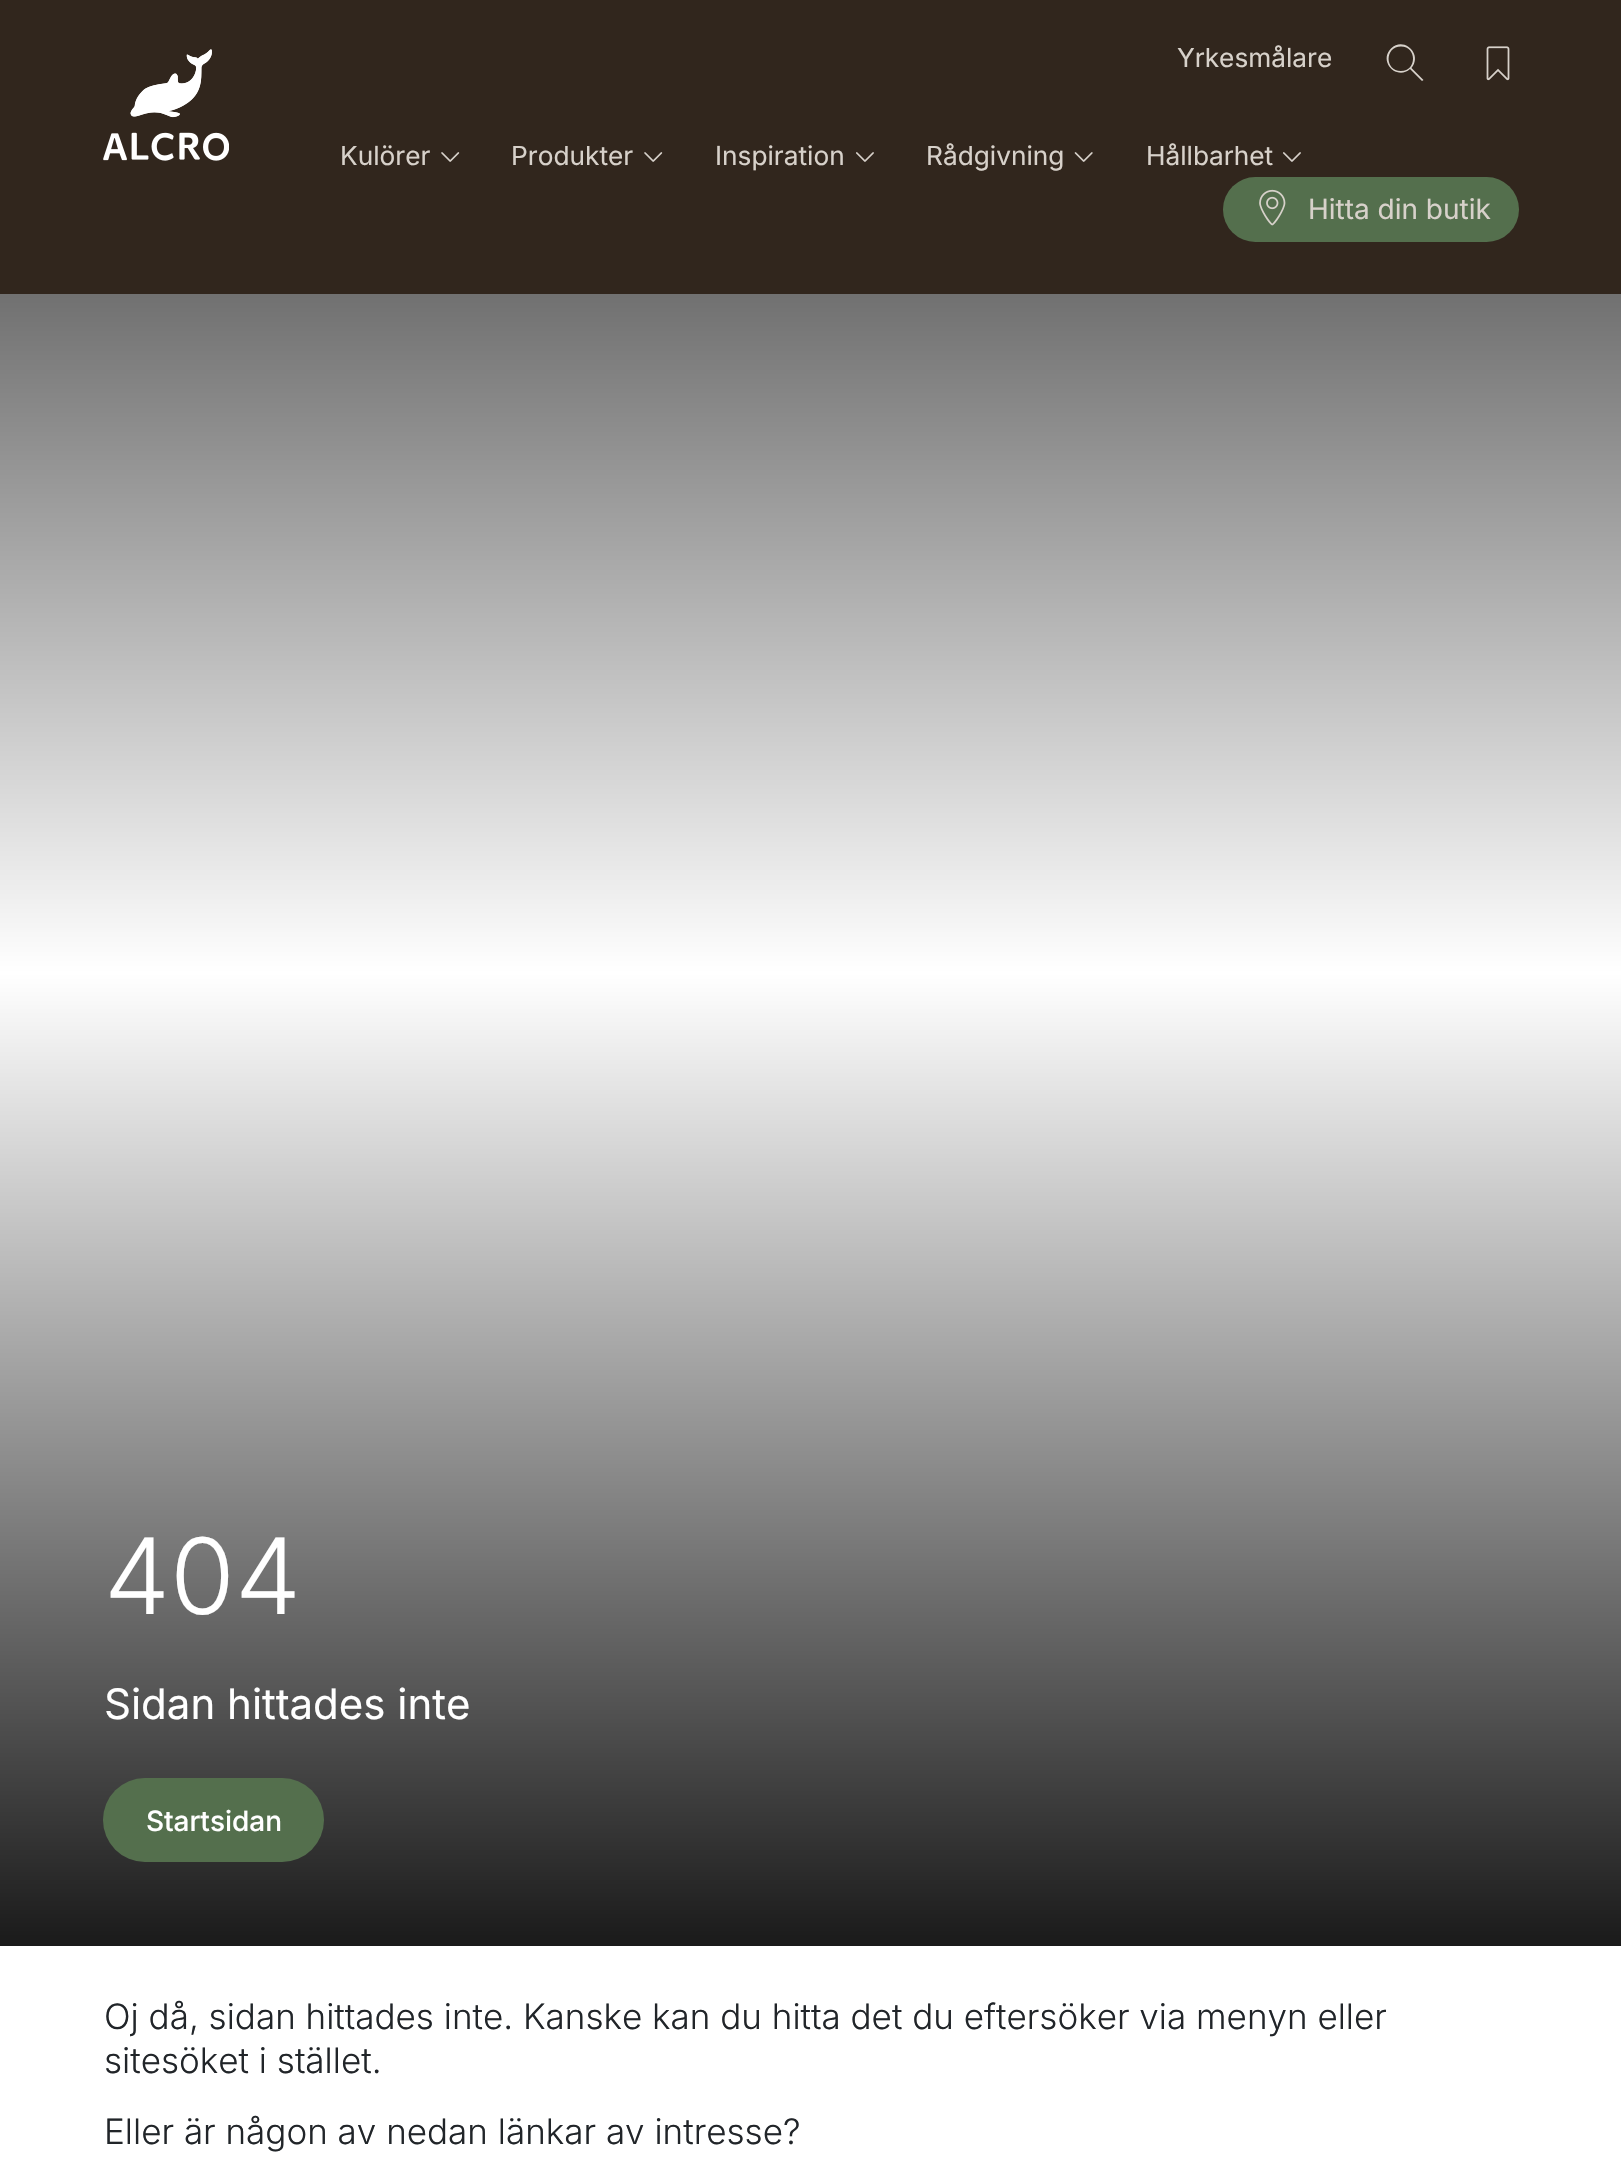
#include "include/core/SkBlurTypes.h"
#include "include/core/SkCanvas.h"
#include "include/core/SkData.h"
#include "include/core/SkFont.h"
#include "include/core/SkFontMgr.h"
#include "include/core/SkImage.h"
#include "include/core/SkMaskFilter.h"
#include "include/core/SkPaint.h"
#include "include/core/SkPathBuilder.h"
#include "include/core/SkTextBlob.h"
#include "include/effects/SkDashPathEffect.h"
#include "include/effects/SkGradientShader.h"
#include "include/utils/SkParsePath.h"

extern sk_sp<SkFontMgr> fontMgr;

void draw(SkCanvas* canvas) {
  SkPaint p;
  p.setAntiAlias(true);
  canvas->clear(SK_ColorWHITE);
  p.setColor(SkColorSetRGB(49, 38, 29));
  canvas->drawRect(SkRect::MakeLTRB(0, 0, 1621, 294), p);
  canvas->drawImageRect(SkImages::DeferredFromEncodedData(SkData::MakeFromFileName("images/1.png")), SkRect::MakeLTRB(103, 49, 229, 161), SkSamplingOptions());
  p.setColor(SkColorSetRGB(215, 209, 202));
  canvas->drawPath(SkPathBuilder().moveTo(1411.5f, 68).lineTo(1423.5f, 80).lineTo(1422, 81).lineTo(1410, 69).cubicTo(1397, 81, 1378, 61.5f, 1391, 48.5f).cubicTo(1404, 36, 1423, 54.5f, 1411.5f, 68).close().moveTo(1401, 71).cubicTo(1417, 71, 1417, 46.5f, 1401, 46.5f).cubicTo(1384.5f, 46.5f, 1384.5f, 71, 1401, 71).close().detach(), p);
  canvas->drawImageRect(SkImages::DeferredFromEncodedData(SkData::MakeFromFileName("images/2.png")), SkRect::MakeLTRB(1486, 46, 1510, 81), SkSamplingOptions());
  canvas->drawImageRect(SkImages::DeferredFromEncodedData(SkData::MakeFromFileName("images/3.png")), SkRect::MakeLTRB(441, 152, 460, 162), SkSamplingOptions());
  canvas->drawImageRect(SkImages::DeferredFromEncodedData(SkData::MakeFromFileName("images/3.png")), SkRect::MakeLTRB(644, 152, 663, 162), SkSamplingOptions());
  canvas->drawImageRect(SkImages::DeferredFromEncodedData(SkData::MakeFromFileName("images/4.png")), SkRect::MakeLTRB(856, 152, 874, 162), SkSamplingOptions());
  canvas->drawImageRect(SkImages::DeferredFromEncodedData(SkData::MakeFromFileName("images/5.png")), SkRect::MakeLTRB(1074, 152, 1093, 162), SkSamplingOptions());
  canvas->drawImageRect(SkImages::DeferredFromEncodedData(SkData::MakeFromFileName("images/4.png")), SkRect::MakeLTRB(1283, 152, 1301, 162), SkSamplingOptions());
  p.setColor(SkColorSetRGB(84, 111, 77));
  canvas->drawRoundRect(SkRect::MakeLTRB(1223, 177, 1519, 242), 32.5f, 32.5f, p);
  canvas->drawImageRect(SkImages::DeferredFromEncodedData(SkData::MakeFromFileName("images/6.png")), SkRect::MakeLTRB(1259, 189, 1286, 226), SkSamplingOptions());
  {
    const SkColor colors[] = {SkColorSetRGB(51, 51, 51), SK_ColorWHITE, SkColorSetRGB(26, 26, 26)};
    const float stops[] = {0, 0.5f, 1};
    const SkPoint ends[] = {{811, 0}, {811, 1946}};
    p.setShader(SkGradientShader::MakeLinear(ends, colors, stops, 3, SkTileMode::kClamp));
    p.setAlpha(255);
  }
  canvas->drawRect(SkRect::MakeLTRB(0, 294, 1621, 1946), p);
  p.setShader(nullptr);
  p.setColor(SkColorSetRGB(84, 111, 77));
  canvas->drawRoundRect(SkRect::MakeLTRB(103, 1778, 324, 1862), 42, 42, p);
  SkFont font1(fontMgr->matchFamilyStyle("Inter", SkFontStyle::Normal()), 26.25f);
  font1.setSubpixel(true);
  p.setColor(SkColorSetRGB(215, 209, 202));
  canvas->drawString("Yrkesmålare", 1177, 67, font1, p);
  canvas->drawString("Kulörer", 340, 165, font1, p);
  canvas->drawString("Produkter", 511, 165, font1, p);
  canvas->drawString("Inspiration", 715, 165, font1, p);
  canvas->drawString("Rådgivning", 926, 165, font1, p);
  canvas->drawString("Hållbarhet", 1146, 165, font1, p);
  SkFont font2(fontMgr->matchFamilyStyle("Inter", SkFontStyle::Normal()), 28);
  font2.setSubpixel(true);
  canvas->drawString("Hitta din butik", 1308, 219, font2, p);
  SkFont font3(fontMgr->matchFamilyStyle("Inter", SkFontStyle(300, SkFontStyle::kNormal_Width, SkFontStyle::kUpright_Slant)), 105);
  font3.setSubpixel(true);
  p.setColor(SK_ColorWHITE);
  canvas->drawString("404", 104, 1614, font3, p);
  SkFont font4(fontMgr->matchFamilyStyle("Inter", SkFontStyle::Normal()), 42);
  font4.setSubpixel(true);
  canvas->drawString("Sidan hittades inte", 104, 1719, font4, p);
  SkFont font5(fontMgr->matchFamilyStyle("Inter", SkFontStyle(500, SkFontStyle::kNormal_Width, SkFontStyle::kUpright_Slant)), 28);
  font5.setSubpixel(true);
  canvas->drawString("Startsidan", 146, 1831, font5, p);
  SkFont font6(fontMgr->matchFamilyStyle("Inter", SkFontStyle(300, SkFontStyle::kNormal_Width, SkFontStyle::kUpright_Slant)), 35);
  font6.setSubpixel(true);
  p.setColor(SkColorSetRGB(33, 37, 41));
  canvas->drawString("Oj då, sidan hittades inte. Kanske kan du hitta det du eftersöker via menyn eller", 104, 2029, font6, p);
  canvas->drawString("sitesöket i stället.", 104, 2073, font6, p);
  canvas->drawString("Eller är någon av nedan länkar av intresse?", 104, 2144, font6, p);
}
